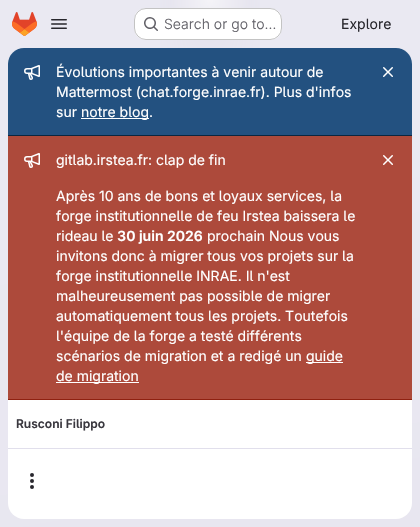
#include "include/core/SkBlurTypes.h"
#include "include/core/SkCanvas.h"
#include "include/core/SkData.h"
#include "include/core/SkFont.h"
#include "include/core/SkFontMgr.h"
#include "include/core/SkImage.h"
#include "include/core/SkMaskFilter.h"
#include "include/core/SkPaint.h"
#include "include/core/SkPathBuilder.h"
#include "include/core/SkTextBlob.h"
#include "include/effects/SkDashPathEffect.h"
#include "include/effects/SkGradientShader.h"
#include "include/utils/SkParsePath.h"

extern sk_sp<SkFontMgr> fontMgr;

void draw(SkCanvas* canvas) {
  SkPaint p;
  p.setAntiAlias(true);
  canvas->clear(SK_ColorWHITE);
  {
    const SkColor colors[] = {SkColorSetRGB(232, 230, 240), SkColorSetRGB(234, 233, 242)};
    const float stops[] = {0, 0.7f};
    const SkPoint ends[] = {{261, 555}, {159, -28}};
    p.setShader(SkGradientShader::MakeLinear(ends, colors, stops, 2, SkTileMode::kClamp));
    p.setAlpha(255);
  }
  canvas->drawRect(SkRect::MakeLTRB(0, 0, 420, 527), p);
  {
    const SkColor colors[] = {SkColorSetRGB(228, 226, 237), SkColorSetARGB(0, 228, 226, 237)};
    const float stops[] = {0, 0.33f};
    SkMatrix m = SkMatrix::Translate(210, 0).preScale(210, 527);
    p.setShader(SkGradientShader::MakeRadial({0, 0}, 1, colors, stops, 2, SkTileMode::kClamp, 0, &m));
    p.setAlpha(255);
  }
  canvas->drawRect(SkRect::MakeLTRB(160, 0, 260, 48), p);
  {
    const SkColor colors[] = {SkColorSetRGB(228, 226, 236), SkColorSetARGB(0, 228, 226, 236)};
    const float stops[] = {0, 0.24f};
    SkMatrix m = SkMatrix::Translate(210, 0).preScale(210, 527);
    p.setShader(SkGradientShader::MakeRadial({0, 0}, 1, colors, stops, 2, SkTileMode::kClamp, 0, &m));
    p.setAlpha(255);
  }
  canvas->drawRect(SkRect::MakeLTRB(189, 9, 231, 25), p);
  {
    const SkColor colors[] = {SkColorSetARGB(153, 255, 255, 255), SkColorSetARGB(0, 255, 255, 255)};
    const float stops[] = {0, 0.07f};
    p.setShader(SkGradientShader::MakeRadial({210, 0}, 567, colors, stops, 2, SkTileMode::kClamp));
    p.setAlpha(255);
  }
  canvas->drawRect(SkRect::MakeLTRB(172, 0, 248, 8), p);
  canvas->drawImageRect(SkImages::DeferredFromEncodedData(SkData::MakeFromFileName("images/1.png")), SkRect::MakeLTRB(12, 12, 37, 36), SkSamplingOptions());
  canvas->drawImageRect(SkImages::DeferredFromEncodedData(SkData::MakeFromFileName("images/2.png")), SkRect::MakeLTRB(51, 19, 67, 29), SkSamplingOptions());
  p.setShader(nullptr);
  p.setColor(SK_ColorWHITE);
  canvas->drawRoundRect(SkRect::MakeLTRB(134, 8, 282, 40), 12, 12, p);
  p.setStyle(SkPaint::kStroke_Style);
  p.setStrokeWidth(1);
  p.setColor(SkColorSetARGB(61, 5, 5, 6));
  canvas->drawRoundRect(SkRect::MakeLTRB(134.5f, 8.5f, 281.5f, 39.5f), 11.5f, 11.5f, p);
  canvas->drawImageRect(SkImages::DeferredFromEncodedData(SkData::MakeFromFileName("images/3.png")), SkRect::MakeLTRB(144, 17, 158, 31), SkSamplingOptions());
  p.setStyle(SkPaint::kFill_Style);
  p.setColor(SK_ColorWHITE);
  canvas->drawRoundRect(SkRect::MakeLTRB(8, 48, 412, 519), 16, 16, p);
  p.setColor(SkColorSetRGB(35, 81, 128));
  canvas->drawPath(SkPathBuilder().moveTo(24, 48).lineTo(396, 48).cubicTo(405, 48, 412, 55, 412, 64).lineTo(412, 136).lineTo(8, 136).lineTo(8, 64).cubicTo(8, 55, 15, 48, 24, 48).close().detach(), p);
  p.setColor(SkColorSetRGB(11, 38, 64));
  canvas->drawRect(SkRect::MakeLTRB(8, 135, 412, 136), p);
  canvas->drawImageRect(SkImages::DeferredFromEncodedData(SkData::MakeFromFileName("images/4.png")), SkRect::MakeLTRB(24, 65, 40, 80), SkSamplingOptions());
  p.setColor(SK_ColorWHITE);
  canvas->drawRect(SkRect::MakeLTRB(81, 118, 149, 119), p);
  canvas->drawImageRect(SkImages::DeferredFromEncodedData(SkData::MakeFromFileName("images/5.png")), SkRect::MakeLTRB(383, 67, 393, 77), SkSamplingOptions());
  p.setColor(SkColorSetRGB(173, 74, 59));
  canvas->drawRect(SkRect::MakeLTRB(8, 136, 412, 399), p);
  p.setColor(SkColorSetRGB(143, 33, 16));
  canvas->drawRect(SkRect::MakeLTRB(8, 399, 412, 400), p);
  canvas->drawImageRect(SkImages::DeferredFromEncodedData(SkData::MakeFromFileName("images/6.png")), SkRect::MakeLTRB(24, 153, 40, 168), SkSamplingOptions());
  p.setColor(SK_ColorWHITE);
  canvas->drawRect(SkRect::MakeLTRB(306, 362, 343, 363), p);
  canvas->drawRect(SkRect::MakeLTRB(56, 382, 139, 383), p);
  canvas->drawImageRect(SkImages::DeferredFromEncodedData(SkData::MakeFromFileName("images/7.png")), SkRect::MakeLTRB(383, 155, 393, 165), SkSamplingOptions());
  p.setColor(SkColorSetRGB(225, 223, 236));
  canvas->drawRect(SkRect::MakeLTRB(8, 448, 412, 449), p);
  canvas->drawImageRect(SkImages::DeferredFromEncodedData(SkData::MakeFromFileName("images/8.png")), SkRect::MakeLTRB(30, 473, 34, 489), SkSamplingOptions());
  SkFont font1(fontMgr->matchFamilyStyle("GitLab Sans", SkFontStyle(300, SkFontStyle::kNormal_Width, SkFontStyle::kUpright_Slant)), 14);
  font1.setSubpixel(true);
  p.setColor(SkColorSetRGB(98, 97, 104));
  canvas->drawString("Search or go to…", 164, 29, font1, p);
  SkFont font2(fontMgr->matchFamilyStyle("GitLab Sans", SkFontStyle::Normal()), 14);
  font2.setSubpixel(true);
  p.setColor(SkColorSetRGB(40, 39, 45));
  canvas->drawString("Explore", 341, 29, font2, p);
  p.setColor(SK_ColorWHITE);
  canvas->drawString("Évolutions importantes à venir autour de", 56, 77, font2, p);
  canvas->drawString("Mattermost (chat.forge.inrae.fr). Plus d'infos", 56, 97, font2, p);
  canvas->drawString("sur", 56, 117, font2, p);
  canvas->drawString("notre blog.", 81, 117, font2, p);
  canvas->drawString("gitlab.irstea.fr: clap de fin", 56, 165, font2, p);
  canvas->drawString("Après 10 ans de bons et loyaux services, la", 56, 201, font2, p);
  canvas->drawString("forge institutionnelle de feu Irstea baissera le", 56, 221, font2, p);
  canvas->drawString("rideau le", 56, 241, font2, p);
  SkFont font3(fontMgr->matchFamilyStyle("GitLab Sans", SkFontStyle(600, SkFontStyle::kNormal_Width, SkFontStyle::kUpright_Slant)), 14);
  font3.setSubpixel(true);
  canvas->drawString("30 juin 2026", 117, 241, font3, p);
  canvas->drawString("prochain Nous vous", 207, 241, font2, p);
  canvas->drawString("invitons donc à migrer tous vos projets sur la", 56, 261, font2, p);
  canvas->drawString("forge institutionnelle INRAE. Il n'est", 56, 281, font2, p);
  canvas->drawString("malheureusement pas possible de migrer", 56, 301, font2, p);
  canvas->drawString("automatiquement tous les projets. Toutefois", 56, 321, font2, p);
  canvas->drawString("l'équipe de la forge a testé différents", 56, 341, font2, p);
  canvas->drawString("scénarios de migration et a redigé un", 56, 361, font2, p);
  canvas->drawString("guide", 306, 361, font2, p);
  canvas->drawString("de migration", 56, 381, font2, p);
  SkFont font4(fontMgr->matchFamilyStyle("GitLab Sans", SkFontStyle(600, SkFontStyle::kNormal_Width, SkFontStyle::kUpright_Slant)), 12);
  font4.setSubpixel(true);
  p.setColor(SkColorSetRGB(58, 56, 63));
  canvas->drawString("Rusconi Filippo", 16, 428, font4, p);
}
